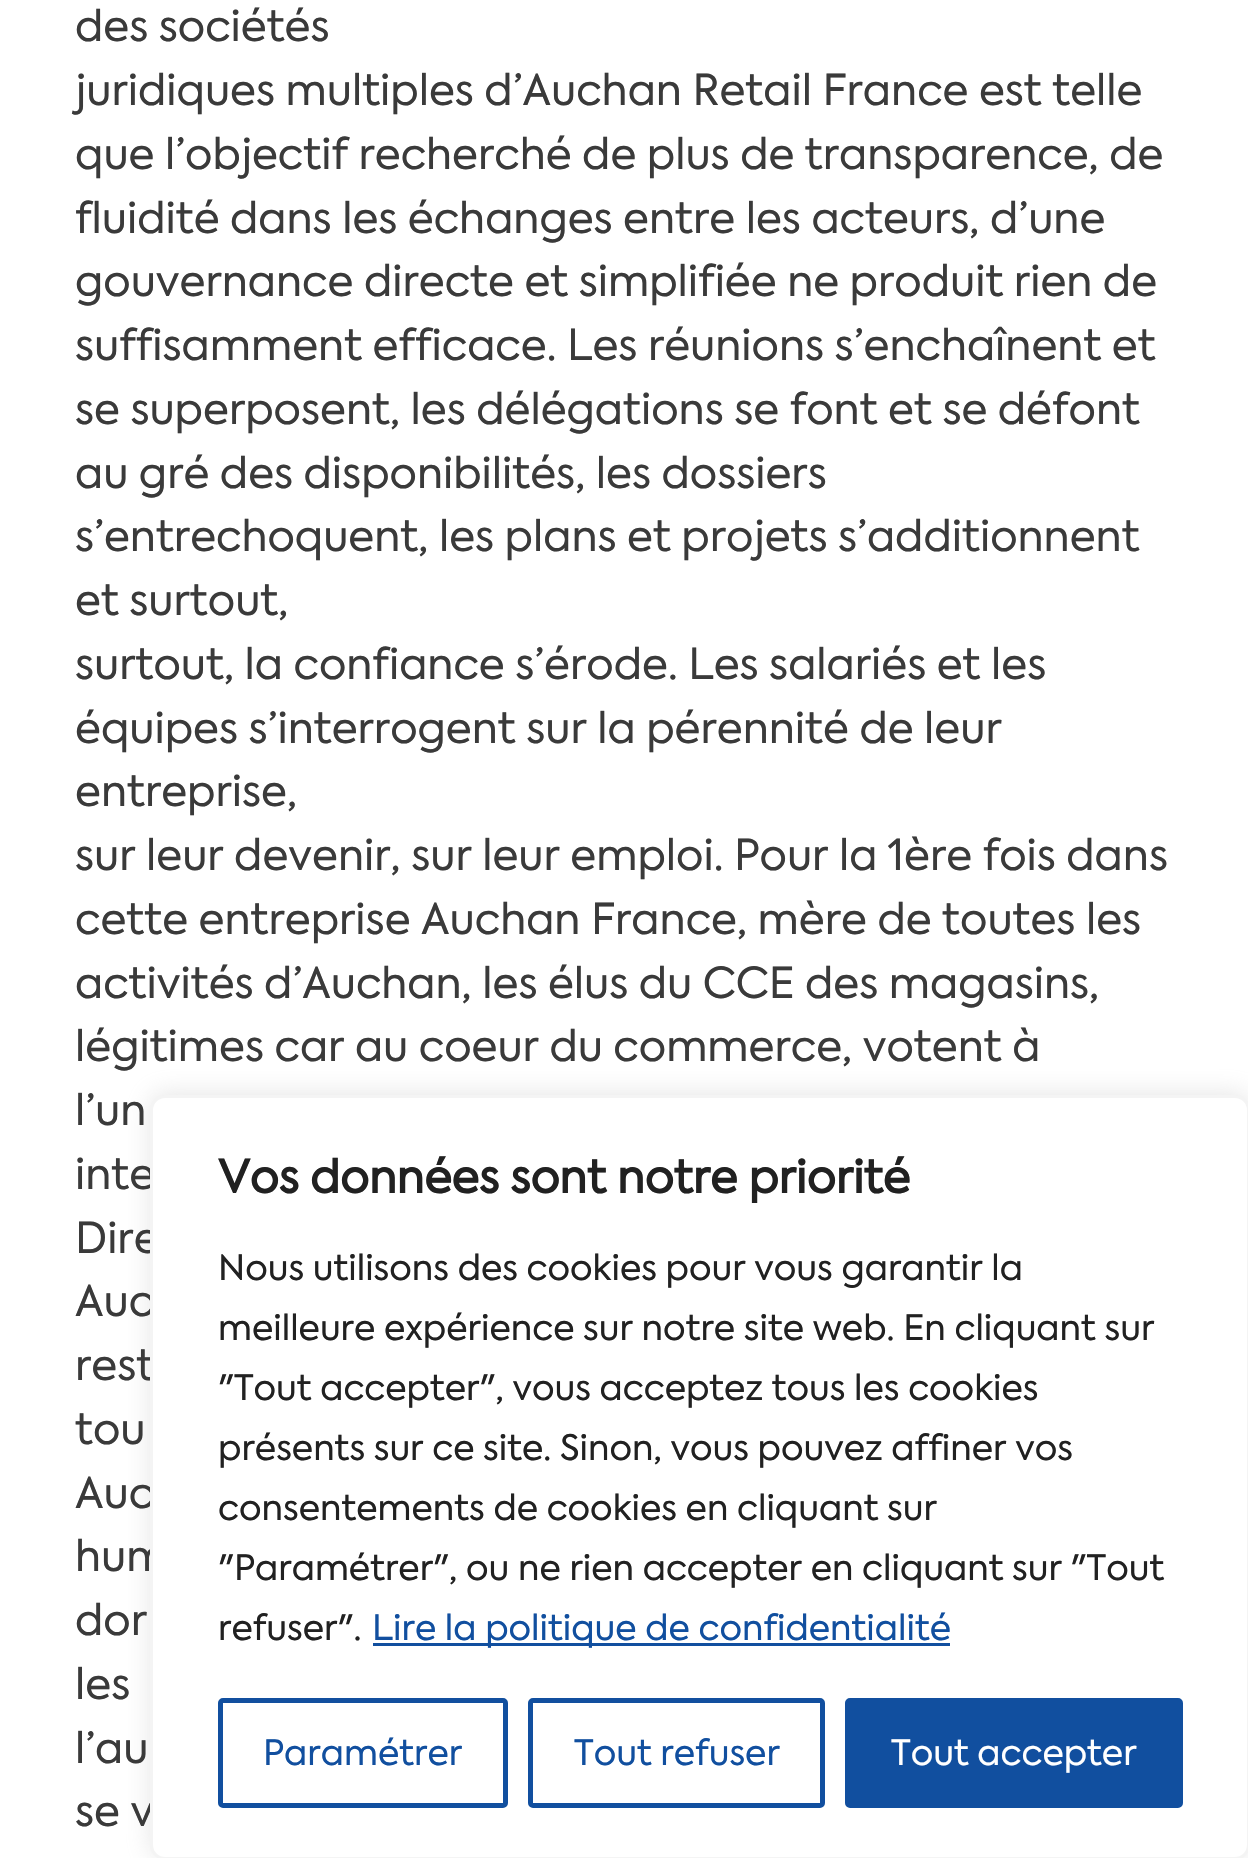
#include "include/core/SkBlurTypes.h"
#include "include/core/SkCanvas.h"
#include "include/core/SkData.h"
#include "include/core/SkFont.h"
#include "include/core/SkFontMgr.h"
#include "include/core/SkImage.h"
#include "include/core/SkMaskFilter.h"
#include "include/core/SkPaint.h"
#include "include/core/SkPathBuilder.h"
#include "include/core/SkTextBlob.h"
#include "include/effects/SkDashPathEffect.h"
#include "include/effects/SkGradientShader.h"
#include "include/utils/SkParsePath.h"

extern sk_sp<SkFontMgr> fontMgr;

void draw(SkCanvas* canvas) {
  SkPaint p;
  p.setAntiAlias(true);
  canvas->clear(SK_ColorWHITE);
  p.setColor(SkColorSetARGB(77, 172, 171, 171));
  p.setMaskFilter(SkMaskFilter::MakeBlur(kNormal_SkBlurStyle, 12.5f));
  canvas->drawRoundRect(SkRect::MakeLTRB(150, 1093, 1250, 1858), 15, 15, p);
  p.setMaskFilter(nullptr);
  SkFont font1(fontMgr->matchFamilyStyle("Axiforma", SkFontStyle::Normal()), 42.5f);
  font1.setSubpixel(true);
  p.setColor(SkColorSetRGB(58, 58, 58));
  canvas->drawString("des sociétés", 75, 41, font1, p);
  canvas->drawString("juridiques multiples d’Auchan Retail France est telle", 75, 105, font1, p);
  canvas->drawString("que l’objectif recherché de plus de transparence, de", 75, 169, font1, p);
  canvas->drawString("fluidité dans les échanges entre les acteurs, d’une", 75, 233, font1, p);
  canvas->drawString("gouvernance directe et simplifiée ne produit rien de", 75, 296, font1, p);
  canvas->drawString("suffisamment efficace. Les réunions s’enchaînent et", 75, 360, font1, p);
  canvas->drawString("se superposent, les délégations se font et se défont", 75, 424, font1, p);
  canvas->drawString("au gré des disponibilités, les dossiers", 75, 488, font1, p);
  canvas->drawString("s’entrechoquent, les plans et projets s’additionnent", 75, 551, font1, p);
  canvas->drawString("et surtout,", 75, 615, font1, p);
  canvas->drawString("surtout, la confiance s’érode. Les salariés et les", 75, 679, font1, p);
  canvas->drawString("équipes s’interrogent sur la pérennité de leur", 75, 743, font1, p);
  canvas->drawString("entreprise,", 75, 806, font1, p);
  canvas->drawString("sur leur devenir, sur leur emploi. Pour la 1ère fois dans", 75, 870, font1, p);
  canvas->drawString("cette entreprise Auchan France, mère de toutes les", 75, 934, font1, p);
  canvas->drawString("activités d’Auchan, les élus du CCE des magasins,", 75, 998, font1, p);
  canvas->drawString("légitimes car au coeur du commerce, votent à", 75, 1061, font1, p);
  canvas->drawString("l’un", 75, 1125, font1, p);
  canvas->drawString("inte", 75, 1189, font1, p);
  canvas->drawString("Dire", 75, 1253, font1, p);
  canvas->drawString("Auc", 75, 1316, font1, p);
  canvas->drawString("rest", 75, 1380, font1, p);
  canvas->drawString("tou", 75, 1444, font1, p);
  canvas->drawString("Auc", 75, 1508, font1, p);
  canvas->drawString("hum", 75, 1571, font1, p);
  canvas->drawString("dor", 75, 1635, font1, p);
  canvas->drawString("les", 75, 1699, font1, p);
  canvas->drawString("l’au", 75, 1763, font1, p);
  canvas->drawString("se v", 75, 1826, font1, p);
  p.setColor(SK_ColorWHITE);
  canvas->drawRoundRect(SkRect::MakeLTRB(151.5f, 1096.5f, 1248.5f, 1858.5f), 13.5f, 13.5f, p);
  p.setStyle(SkPaint::kStroke_Style);
  p.setStrokeWidth(3);
  p.setColor(SkColorSetRGB(244, 244, 244));
  canvas->drawRoundRect(SkRect::MakeLTRB(151.5f, 1096.5f, 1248.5f, 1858.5f), 13.5f, 13.5f, p);
  SkFont font2(fontMgr->matchFamilyStyle("Axiforma", SkFontStyle::Bold()), 45);
  font2.setSubpixel(true);
  p.setStyle(SkPaint::kFill_Style);
  p.setColor(SkColorSetRGB(33, 33, 33));
  canvas->drawString("Vos données sont notre priorité", 218, 1193, font2, p);
  SkFont font3(fontMgr->matchFamilyStyle("Axiforma", SkFontStyle::Normal()), 35);
  font3.setSubpixel(true);
  canvas->drawString("Nous utilisons des cookies pour vous garantir la", 218, 1280, font3, p);
  canvas->drawString("meilleure expérience sur notre site web. En cliquant sur", 218, 1340, font3, p);
  canvas->drawString("\"Tout accepter\", vous acceptez tous les cookies", 218, 1400, font3, p);
  canvas->drawString("présents sur ce site. Sinon, vous pouvez affiner vos", 218, 1460, font3, p);
  canvas->drawString("consentements de cookies en cliquant sur", 218, 1520, font3, p);
  canvas->drawString("\"Paramétrer\", ou ne rien accepter en cliquant sur \"Tout", 218, 1580, font3, p);
  canvas->drawString("refuser\".", 218, 1640, font3, p);
  p.setColor(SkColorSetRGB(17, 79, 159));
  canvas->drawRect(SkRect::MakeLTRB(373, 1643, 950, 1646), p);
  canvas->drawString("Lire la politique de confidentialité", 372, 1640, font3, p);
  p.setStyle(SkPaint::kStroke_Style);
  p.setStrokeWidth(5);
  canvas->drawRoundRect(SkRect::MakeLTRB(220.5f, 1700.5f, 505.5f, 1805.5f), 2.5f, 2.5f, p);
  p.setStyle(SkPaint::kFill_Style);
  canvas->drawString("Paramétrer", 263, 1765, font3, p);
  p.setStyle(SkPaint::kStroke_Style);
  canvas->drawRoundRect(SkRect::MakeLTRB(530.5f, 1700.5f, 822.5f, 1805.5f), 2.5f, 2.5f, p);
  p.setStyle(SkPaint::kFill_Style);
  canvas->drawString("Tout refuser", 574, 1765, font3, p);
  canvas->drawRoundRect(SkRect::MakeLTRB(847.5f, 1700.5f, 1180.5f, 1805.5f), 2.5f, 2.5f, p);
  p.setStyle(SkPaint::kStroke_Style);
  canvas->drawRoundRect(SkRect::MakeLTRB(847.5f, 1700.5f, 1180.5f, 1805.5f), 2.5f, 2.5f, p);
  p.setStyle(SkPaint::kFill_Style);
  p.setColor(SK_ColorWHITE);
  canvas->drawString("Tout accepter", 891, 1765, font3, p);
}
